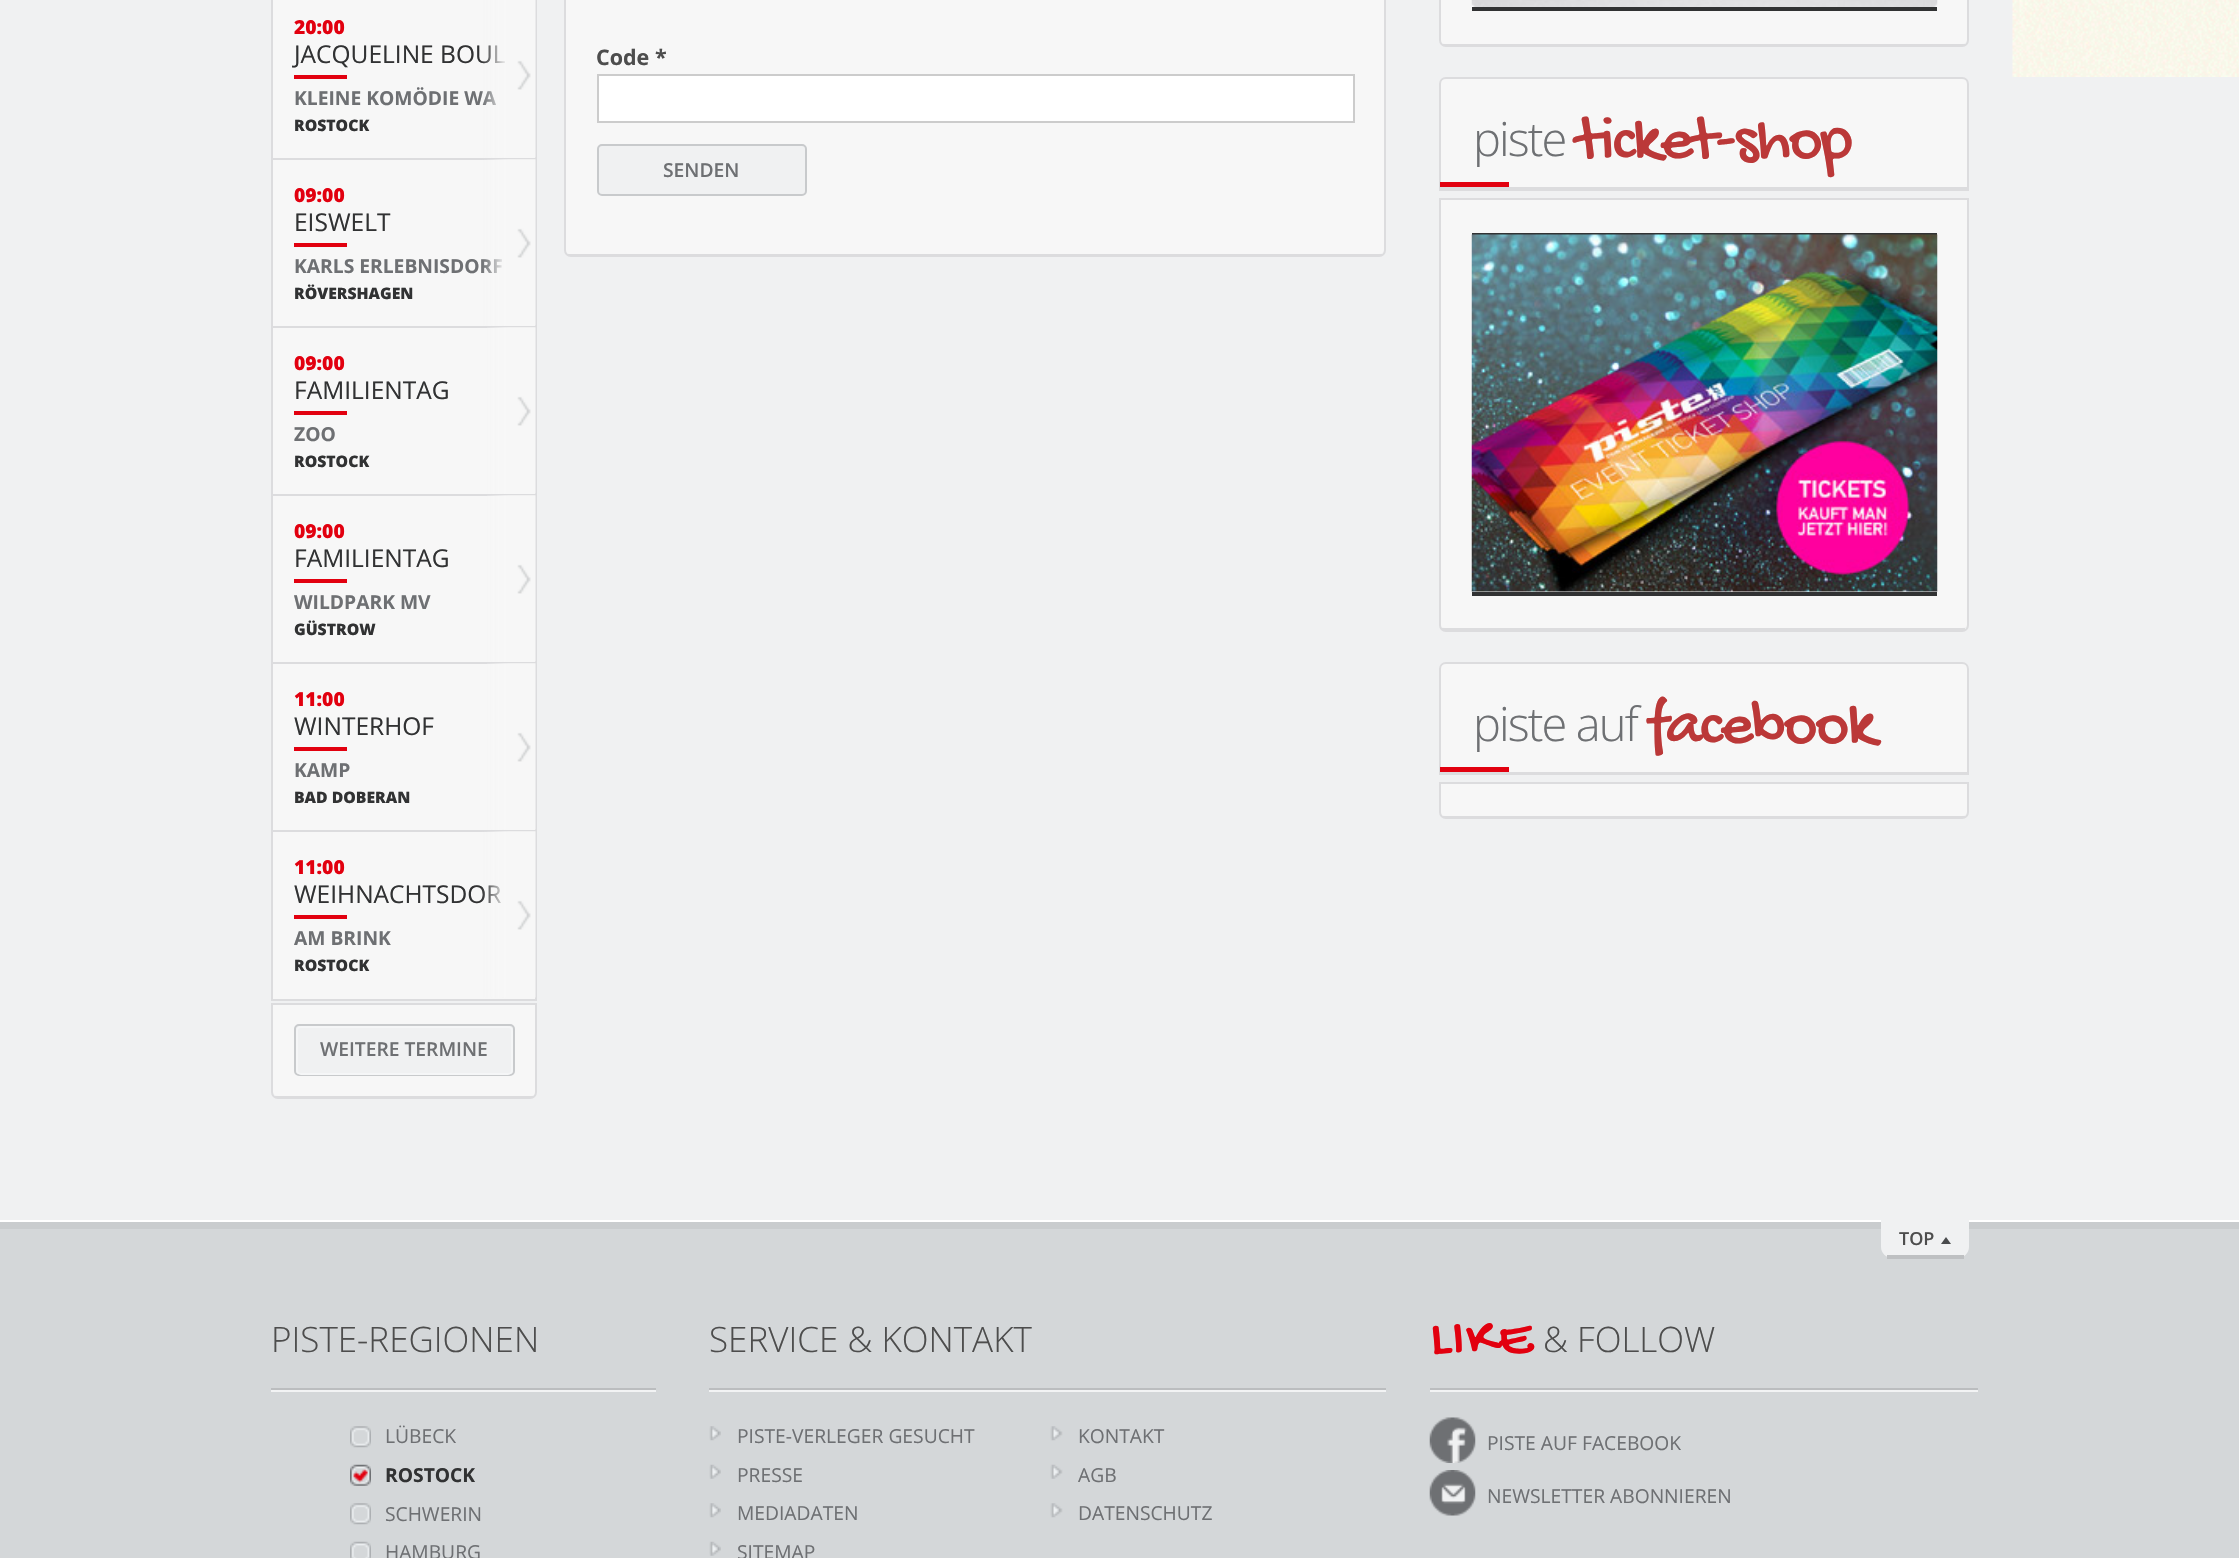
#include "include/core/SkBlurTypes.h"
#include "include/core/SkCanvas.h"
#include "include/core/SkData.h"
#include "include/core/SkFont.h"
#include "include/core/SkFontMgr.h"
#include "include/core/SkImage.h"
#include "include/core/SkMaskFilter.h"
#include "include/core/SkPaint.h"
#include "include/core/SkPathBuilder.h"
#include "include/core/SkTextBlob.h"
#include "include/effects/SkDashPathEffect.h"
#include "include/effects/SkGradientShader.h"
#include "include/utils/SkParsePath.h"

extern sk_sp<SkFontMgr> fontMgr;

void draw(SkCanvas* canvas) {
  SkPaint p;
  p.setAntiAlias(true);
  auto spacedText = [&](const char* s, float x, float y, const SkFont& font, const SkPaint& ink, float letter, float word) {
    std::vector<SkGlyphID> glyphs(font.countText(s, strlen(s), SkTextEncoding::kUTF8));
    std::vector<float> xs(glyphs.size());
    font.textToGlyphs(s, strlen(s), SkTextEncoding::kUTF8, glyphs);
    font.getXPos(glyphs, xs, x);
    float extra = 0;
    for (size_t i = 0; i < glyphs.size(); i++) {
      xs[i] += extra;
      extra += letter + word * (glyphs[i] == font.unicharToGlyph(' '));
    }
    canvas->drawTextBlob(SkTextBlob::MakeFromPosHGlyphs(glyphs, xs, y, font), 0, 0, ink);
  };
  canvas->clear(SkColorSetRGB(240, 241, 242));
  p.setColor(SkColorSetRGB(247, 247, 247));
  canvas->drawRect(SkRect::MakeLTRB(272, -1, 536, 1000), p);
  p.setStyle(SkPaint::kStroke_Style);
  p.setStrokeWidth(2);
  p.setColor(SkColorSetRGB(220, 220, 222));
  canvas->drawRect(SkRect::MakeLTRB(272, -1, 536, 1000), p);
  p.setStyle(SkPaint::kFill_Style);
  canvas->drawRect(SkRect::MakeLTRB(273, 158, 536, 160), p);
  p.setColor(SkColorSetRGB(226, 0, 15));
  canvas->drawRect(SkRect::MakeLTRB(294, 75, 347, 79), p);
  p.setColor(SkColorSetRGB(220, 220, 222));
  canvas->drawRect(SkRect::MakeLTRB(273, 326, 536, 328), p);
  p.setColor(SkColorSetRGB(226, 0, 15));
  canvas->drawRect(SkRect::MakeLTRB(294, 243, 347, 247), p);
  p.setColor(SkColorSetRGB(220, 220, 222));
  canvas->drawRect(SkRect::MakeLTRB(273, 494, 536, 496), p);
  canvas->drawImageRect(SkImages::DeferredFromEncodedData(SkData::MakeFromFileName("images/3.png")), SkRect::MakeLTRB(487, 327, 536, 494), SkSamplingOptions());
  p.setColor(SkColorSetRGB(226, 0, 15));
  canvas->drawRect(SkRect::MakeLTRB(294, 411, 347, 415), p);
  p.setColor(SkColorSetRGB(220, 220, 222));
  canvas->drawRect(SkRect::MakeLTRB(273, 662, 536, 664), p);
  canvas->drawImageRect(SkImages::DeferredFromEncodedData(SkData::MakeFromFileName("images/3.png")), SkRect::MakeLTRB(487, 495, 536, 662), SkSamplingOptions());
  p.setColor(SkColorSetRGB(226, 0, 15));
  canvas->drawRect(SkRect::MakeLTRB(294, 579, 347, 583), p);
  p.setColor(SkColorSetRGB(220, 220, 222));
  canvas->drawRect(SkRect::MakeLTRB(273, 830, 536, 832), p);
  canvas->drawImageRect(SkImages::DeferredFromEncodedData(SkData::MakeFromFileName("images/3.png")), SkRect::MakeLTRB(487, 663, 536, 830), SkSamplingOptions());
  p.setColor(SkColorSetRGB(226, 0, 15));
  canvas->drawRect(SkRect::MakeLTRB(294, 747, 347, 751), p);
  canvas->drawRect(SkRect::MakeLTRB(294, 915, 347, 919), p);
  p.setColor(SkColorSetRGB(247, 247, 247));
  canvas->drawPath(SkPathBuilder().moveTo(273, 1004).lineTo(536, 1004).lineTo(536, 1092).cubicTo(536, 1094, 533, 1096, 530, 1096).lineTo(278, 1096).cubicTo(275, 1096, 273, 1094, 273, 1092).close().detach(), p);
  p.setStyle(SkPaint::kStroke_Style);
  p.setColor(SkColorSetRGB(220, 220, 222));
  canvas->drawPath(SkPathBuilder().moveTo(272, 1004).lineTo(536, 1004).lineTo(536, 1092).cubicTo(536, 1095.5f, 533.5f, 1098, 530, 1098).lineTo(278, 1098).cubicTo(274.5f, 1098, 272, 1095.5f, 272, 1092).close().detach(), p);
  p.setStyle(SkPaint::kFill_Style);
  canvas->drawRect(SkRect::MakeLTRB(275, 1096, 534, 1097), p);
  p.setColor(SkColorSetRGB(240, 241, 242));
  canvas->drawRoundRect(SkRect::MakeLTRB(295, 1025, 514, 1075), 4, 4, p);
  p.setStyle(SkPaint::kStroke_Style);
  p.setColor(SkColorSetRGB(200, 202, 204));
  canvas->drawRoundRect(SkRect::MakeLTRB(295, 1025, 514, 1075), 4, 4, p);
  p.setColor(SkColorSetRGB(245, 246, 247));
  canvas->drawRoundRect(SkRect::MakeLTRB(297, 1027, 512, 1074), 4, 4, p);
  p.setStyle(SkPaint::kFill_Style);
  p.setColor(SkColorSetRGB(247, 247, 247));
  canvas->drawPath(SkPathBuilder().moveTo(565, -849).lineTo(1384, -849).lineTo(1384, 250).cubicTo(1384, 252, 1382, 254, 1379, 254).lineTo(570, 254).cubicTo(568, 254, 565, 252, 565, 250).close().detach(), p);
  p.setStyle(SkPaint::kStroke_Style);
  p.setColor(SkColorSetRGB(220, 220, 222));
  canvas->drawPath(SkPathBuilder().moveTo(565, -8).lineTo(1385, -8).lineTo(1385, 250).cubicTo(1385, 253.5f, 1382.5f, 256, 1379, 256).lineTo(571, 256).cubicTo(567.5f, 256, 565, 253.5f, 565, 250).close().detach(), p);
  p.setStyle(SkPaint::kFill_Style);
  canvas->drawRect(SkRect::MakeLTRB(567, 254, 1383, 255), p);
  p.setColor(SK_ColorWHITE);
  canvas->drawRect(SkRect::MakeLTRB(598, 75, 1354, 122), p);
  p.setStyle(SkPaint::kStroke_Style);
  p.setColor(SkColorSetRGB(204, 204, 204));
  canvas->drawRect(SkRect::MakeLTRB(598, 75, 1354, 122), p);
  p.setStyle(SkPaint::kFill_Style);
  p.setColor(SkColorSetRGB(240, 241, 242));
  canvas->drawRoundRect(SkRect::MakeLTRB(598, 145, 806, 195), 4, 4, p);
  p.setStyle(SkPaint::kStroke_Style);
  p.setColor(SkColorSetRGB(200, 202, 204));
  canvas->drawRoundRect(SkRect::MakeLTRB(598, 145, 806, 195), 4, 4, p);
  p.setStyle(SkPaint::kFill_Style);
  p.setColor(SkColorSetRGB(247, 247, 247));
  canvas->drawPath(SkPathBuilder().moveTo(1440, -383).lineTo(1967, -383).lineTo(1967, 40).cubicTo(1967, 42, 1965, 44, 1962, 44).lineTo(1446, 44).cubicTo(1443, 44, 1440, 42, 1440, 40).close().detach(), p);
  p.setStyle(SkPaint::kStroke_Style);
  p.setColor(SkColorSetRGB(220, 220, 222));
  canvas->drawPath(SkPathBuilder().moveTo(1440, -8).lineTo(1968, -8).lineTo(1968, 40).cubicTo(1968, 43.5f, 1965.5f, 46, 1962, 46).lineTo(1446, 46).cubicTo(1442.5f, 46, 1440, 43.5f, 1440, 40).close().detach(), p);
  p.setStyle(SkPaint::kFill_Style);
  canvas->drawRect(SkRect::MakeLTRB(1442, 44, 1965, 45), p);
  p.setColor(SkColorSetRGB(49, 50, 51));
  canvas->drawRect(SkRect::MakeLTRB(1472, 7, 1937, 11), p);
  canvas->drawImageRect(SkImages::DeferredFromEncodedData(SkData::MakeFromFileName("images/5.png")), SkRect::MakeLTRB(1471, 0, 1938, 7), SkSamplingOptions());
  canvas->drawImageRect(SkImages::DeferredFromEncodedData(SkData::MakeFromFileName("images/6.png")), SkRect::MakeLTRB(2012, 0, 2239, 77), SkSamplingOptions());
  p.setColor(SkColorSetRGB(247, 247, 247));
  canvas->drawPath(SkPathBuilder().moveTo(1445, 79).lineTo(1962, 79).cubicTo(1965, 79, 1967, 81, 1967, 84).lineTo(1967, 187).lineTo(1440, 187).lineTo(1440, 84).cubicTo(1440, 81, 1442, 79, 1445, 79).close().detach(), p);
  p.setStyle(SkPaint::kStroke_Style);
  p.setColor(SkColorSetRGB(220, 220, 222));
  canvas->drawPath(SkPathBuilder().moveTo(1446, 78).lineTo(1962, 78).cubicTo(1965.5f, 78, 1968, 80.5f, 1968, 84).lineTo(1968, 190).lineTo(1440, 190).lineTo(1440, 84).cubicTo(1440, 80.5f, 1442.5f, 78, 1446, 78).close().detach(), p);
  p.setStyle(SkPaint::kFill_Style);
  canvas->drawRect(SkRect::MakeLTRB(1439, 187, 1969, 189), p);
  p.setColor(SkColorSetRGB(226, 0, 15));
  canvas->drawRect(SkRect::MakeLTRB(1440, 182, 1509, 187), p);
  p.setColor(SkColorSetRGB(247, 247, 247));
  canvas->drawPath(SkPathBuilder().moveTo(1440, 200).lineTo(1967, 200).lineTo(1967, 625).cubicTo(1967, 627, 1965, 628, 1962, 628).lineTo(1446, 628).cubicTo(1443, 628, 1440, 627, 1440, 625).close().detach(), p);
  p.setStyle(SkPaint::kStroke_Style);
  p.setColor(SkColorSetRGB(220, 220, 222));
  canvas->drawPath(SkPathBuilder().moveTo(1440, 199).lineTo(1968, 199).lineTo(1968, 625).cubicTo(1968, 628.5f, 1965.5f, 631, 1962, 631).lineTo(1446, 631).cubicTo(1442.5f, 631, 1440, 628.5f, 1440, 625).close().detach(), p);
  p.setStyle(SkPaint::kFill_Style);
  canvas->drawRect(SkRect::MakeLTRB(1442, 628, 1965, 630), p);
  p.setColor(SkColorSetRGB(49, 50, 51));
  canvas->drawRect(SkRect::MakeLTRB(1472, 233, 1937, 235), p);
  canvas->drawRect(SkRect::MakeLTRB(1472, 592, 1937, 596), p);
  canvas->drawImageRect(SkImages::DeferredFromEncodedData(SkData::MakeFromFileName("images/7.png")), SkRect::MakeLTRB(1471, 234, 1938, 592), SkSamplingOptions());
  p.setColor(SkColorSetRGB(247, 247, 247));
  canvas->drawPath(SkPathBuilder().moveTo(1445, 663).lineTo(1962, 663).cubicTo(1965, 663, 1967, 665, 1967, 668).lineTo(1967, 772).lineTo(1440, 772).lineTo(1440, 668).cubicTo(1440, 665, 1442, 663, 1445, 663).close().detach(), p);
  p.setStyle(SkPaint::kStroke_Style);
  p.setColor(SkColorSetRGB(220, 220, 222));
  canvas->drawPath(SkPathBuilder().moveTo(1446, 663).lineTo(1962, 663).cubicTo(1965.5f, 663, 1968, 665.5f, 1968, 669).lineTo(1968, 774).lineTo(1440, 774).lineTo(1440, 669).cubicTo(1440, 665.5f, 1442.5f, 663, 1446, 663).close().detach(), p);
  p.setStyle(SkPaint::kFill_Style);
  canvas->drawRect(SkRect::MakeLTRB(1439, 772, 1969, 773), p);
  p.setColor(SkColorSetRGB(226, 0, 15));
  canvas->drawRect(SkRect::MakeLTRB(1440, 767, 1509, 772), p);
  p.setColor(SkColorSetRGB(247, 247, 247));
  canvas->drawPath(SkPathBuilder().moveTo(1440, 784).lineTo(1967, 784).lineTo(1967, 812).cubicTo(1967, 814, 1965, 816, 1962, 816).lineTo(1446, 816).cubicTo(1443, 816, 1440, 814, 1440, 812).close().detach(), p);
  p.setStyle(SkPaint::kStroke_Style);
  p.setColor(SkColorSetRGB(220, 220, 222));
  canvas->drawPath(SkPathBuilder().moveTo(1440, 783).lineTo(1968, 783).lineTo(1968, 812).cubicTo(1968, 815.5f, 1965.5f, 818, 1962, 818).lineTo(1446, 818).cubicTo(1442.5f, 818, 1440, 815.5f, 1440, 812).close().detach(), p);
  p.setStyle(SkPaint::kFill_Style);
  canvas->drawRect(SkRect::MakeLTRB(1442, 816, 1965, 817), p);
  p.setColor(SkColorSetRGB(212, 215, 217));
  canvas->drawRect(SkRect::MakeLTRB(0, 1229, 2239, 1558), p);
  p.setColor(SkColorSetRGB(201, 204, 206));
  canvas->drawRect(SkRect::MakeLTRB(0, 1222, 2239, 1229), p);
  p.setColor(SK_ColorWHITE);
  canvas->drawRect(SkRect::MakeLTRB(0, 1220, 2239, 1222), p);
  p.setColor(SkColorSetRGB(240, 241, 242));
  canvas->drawPath(SkPathBuilder().moveTo(1881, 1220).lineTo(1969, 1220).lineTo(1969, 1247).cubicTo(1969, 1253, 1964, 1258, 1958, 1258).lineTo(1892, 1258).cubicTo(1886, 1258, 1881, 1253, 1881, 1247).close().detach(), p);
  p.setColor(SkColorSetRGB(190, 192, 194));
  canvas->drawRect(SkRect::MakeLTRB(1887, 1255, 1964, 1259), p);
  p.setColor(SkColorSetRGB(73, 75, 77));
  canvas->drawPath(SkPathBuilder().moveTo(1951, 1244).lineTo(1941, 1244).lineTo(1946, 1237).close().detach(), p);
  p.setColor(SkColorSetRGB(187, 189, 191));
  canvas->drawRect(SkRect::MakeLTRB(271, 1388, 656, 1390), p);
  p.setColor(SkColorSetRGB(242, 243, 244));
  canvas->drawRect(SkRect::MakeLTRB(271, 1390, 656, 1392), p);
  canvas->drawImageRect(SkImages::DeferredFromEncodedData(SkData::MakeFromFileName("images/8.png")), SkRect::MakeLTRB(350, 1426, 371, 1448), SkSamplingOptions());
  canvas->drawImageRect(SkImages::DeferredFromEncodedData(SkData::MakeFromFileName("images/9.png")), SkRect::MakeLTRB(350, 1464, 371, 1486), SkSamplingOptions());
  canvas->drawImageRect(SkImages::DeferredFromEncodedData(SkData::MakeFromFileName("images/8.png")), SkRect::MakeLTRB(350, 1503, 371, 1525), SkSamplingOptions());
  canvas->drawImageRect(SkImages::DeferredFromEncodedData(SkData::MakeFromFileName("images/10.png")), SkRect::MakeLTRB(350, 1541, 371, 1558), SkSamplingOptions());
  p.setColor(SkColorSetRGB(187, 189, 191));
  canvas->drawRect(SkRect::MakeLTRB(709, 1388, 1386, 1390), p);
  p.setColor(SkColorSetRGB(242, 243, 244));
  canvas->drawRect(SkRect::MakeLTRB(709, 1390, 1386, 1392), p);
  canvas->drawImageRect(SkImages::DeferredFromEncodedData(SkData::MakeFromFileName("images/11.png")), SkRect::MakeLTRB(709, 1426, 721, 1441), SkSamplingOptions());
  canvas->drawImageRect(SkImages::DeferredFromEncodedData(SkData::MakeFromFileName("images/12.png")), SkRect::MakeLTRB(709, 1464, 721, 1479), SkSamplingOptions());
  canvas->drawImageRect(SkImages::DeferredFromEncodedData(SkData::MakeFromFileName("images/11.png")), SkRect::MakeLTRB(709, 1503, 721, 1518), SkSamplingOptions());
  canvas->drawImageRect(SkImages::DeferredFromEncodedData(SkData::MakeFromFileName("images/12.png")), SkRect::MakeLTRB(709, 1541, 721, 1556), SkSamplingOptions());
  canvas->drawImageRect(SkImages::DeferredFromEncodedData(SkData::MakeFromFileName("images/13.png")), SkRect::MakeLTRB(1050, 1426, 1063, 1441), SkSamplingOptions());
  canvas->drawImageRect(SkImages::DeferredFromEncodedData(SkData::MakeFromFileName("images/14.png")), SkRect::MakeLTRB(1050, 1464, 1063, 1479), SkSamplingOptions());
  canvas->drawImageRect(SkImages::DeferredFromEncodedData(SkData::MakeFromFileName("images/13.png")), SkRect::MakeLTRB(1050, 1503, 1063, 1518), SkSamplingOptions());
  p.setColor(SkColorSetRGB(187, 189, 191));
  canvas->drawRect(SkRect::MakeLTRB(1430, 1388, 1978, 1390), p);
  p.setColor(SkColorSetRGB(242, 243, 244));
  canvas->drawRect(SkRect::MakeLTRB(1430, 1390, 1978, 1392), p);
  canvas->drawImageRect(SkImages::DeferredFromEncodedData(SkData::MakeFromFileName("images/15.png")), SkRect::MakeLTRB(1429, 1417, 1476, 1463), SkSamplingOptions());
  canvas->drawImageRect(SkImages::DeferredFromEncodedData(SkData::MakeFromFileName("images/16.png")), SkRect::MakeLTRB(1429, 1470, 1476, 1516), SkSamplingOptions());
  SkFont font1(fontMgr->matchFamilyStyle("Open Sans", SkFontStyle(800, SkFontStyle::kNormal_Width, SkFontStyle::kUpright_Slant)), 19.25f);
  font1.setSubpixel(true);
  p.setColor(SkColorSetRGB(226, 0, 15));
  canvas->drawString("20:00", 294, 34, font1, p);
  SkFont font2(fontMgr->matchFamilyStyle("Open Sans", SkFontStyle::Normal()), 24.5f);
  font2.setSubpixel(true);
  p.setColor(SkColorSetRGB(49, 50, 51));
  canvas->drawString("JACQUELINE BOUL", 294, 63, font2, p);
  SkFont font3(fontMgr->matchFamilyStyle("Open Sans", SkFontStyle::Bold()), 19.25f);
  font3.setSubpixel(true);
  p.setColor(SkColorSetRGB(110, 112, 115));
  canvas->drawString("KLEINE KOMÖDIE WA", 294, 105, font3, p);
  canvas->drawImageRect(SkImages::DeferredFromEncodedData(SkData::MakeFromFileName("images/1.png")), SkRect::MakeLTRB(481, 0, 536, 158), SkSamplingOptions());
  SkFont font4(fontMgr->matchFamilyStyle("Open Sans", SkFontStyle(800, SkFontStyle::kNormal_Width, SkFontStyle::kUpright_Slant)), 15.75f);
  font4.setSubpixel(true);
  p.setColor(SkColorSetRGB(49, 50, 51));
  canvas->drawString("ROSTOCK", 294, 131, font4, p);
  p.setColor(SkColorSetRGB(226, 0, 15));
  canvas->drawString("09:00", 294, 202, font1, p);
  p.setColor(SkColorSetRGB(49, 50, 51));
  canvas->drawString("EISWELT", 294, 231, font2, p);
  p.setColor(SkColorSetRGB(110, 112, 115));
  canvas->drawString("KARLS ERLEBNISDORF", 294, 273, font3, p);
  canvas->drawImageRect(SkImages::DeferredFromEncodedData(SkData::MakeFromFileName("images/2.png")), SkRect::MakeLTRB(482, 159, 536, 326), SkSamplingOptions());
  p.setColor(SkColorSetRGB(49, 50, 51));
  canvas->drawString("RÖVERSHAGEN", 294, 299, font4, p);
  p.setColor(SkColorSetRGB(226, 0, 15));
  canvas->drawString("09:00", 294, 370, font1, p);
  p.setColor(SkColorSetRGB(49, 50, 51));
  canvas->drawString("FAMILIENTAG", 294, 399, font2, p);
  p.setColor(SkColorSetRGB(110, 112, 115));
  canvas->drawString("ZOO", 294, 441, font3, p);
  p.setColor(SkColorSetRGB(49, 50, 51));
  canvas->drawString("ROSTOCK", 294, 467, font4, p);
  p.setColor(SkColorSetRGB(226, 0, 15));
  canvas->drawString("09:00", 294, 538, font1, p);
  p.setColor(SkColorSetRGB(49, 50, 51));
  canvas->drawString("FAMILIENTAG", 294, 567, font2, p);
  p.setColor(SkColorSetRGB(110, 112, 115));
  canvas->drawString("WILDPARK MV", 294, 609, font3, p);
  p.setColor(SkColorSetRGB(49, 50, 51));
  canvas->drawString("GÜSTROW", 294, 635, font4, p);
  p.setColor(SkColorSetRGB(226, 0, 15));
  canvas->drawString("11:00", 294, 706, font1, p);
  p.setColor(SkColorSetRGB(49, 50, 51));
  canvas->drawString("WINTERHOF", 294, 735, font2, p);
  p.setColor(SkColorSetRGB(110, 112, 115));
  canvas->drawString("KAMP", 294, 777, font3, p);
  p.setColor(SkColorSetRGB(49, 50, 51));
  canvas->drawString("BAD DOBERAN", 294, 803, font4, p);
  p.setColor(SkColorSetRGB(226, 0, 15));
  canvas->drawString("11:00", 294, 874, font1, p);
  p.setColor(SkColorSetRGB(49, 50, 51));
  canvas->drawString("WEIHNACHTSDOR", 294, 903, font2, p);
  canvas->drawImageRect(SkImages::DeferredFromEncodedData(SkData::MakeFromFileName("images/4.png")), SkRect::MakeLTRB(481, 831, 536, 998), SkSamplingOptions());
  p.setColor(SkColorSetRGB(110, 112, 115));
  canvas->drawString("AM BRINK", 294, 945, font3, p);
  p.setColor(SkColorSetRGB(49, 50, 51));
  canvas->drawString("ROSTOCK", 294, 971, font4, p);
  SkFont font5(fontMgr->matchFamilyStyle("Open Sans", SkFontStyle(600, SkFontStyle::kNormal_Width, SkFontStyle::kUpright_Slant)), 19.25f);
  font5.setSubpixel(true);
  p.setColor(SkColorSetRGB(110, 112, 115));
  canvas->drawString("WEITERE TERMINE", 320, 1056, font5, p);
  SkFont font6(fontMgr->matchFamilyStyle("Open Sans", SkFontStyle::Bold()), 21.5f);
  font6.setSubpixel(true);
  p.setColor(SkColorSetRGB(77, 77, 77));
  canvas->drawString("Code *", 596, 65, font6, p);
  p.setColor(SkColorSetRGB(110, 112, 115));
  canvas->drawString("SENDEN", 663, 177, font5, p);
  SkFont font7(fontMgr->matchFamilyStyle("Open Sans", SkFontStyle(300, SkFontStyle::kNormal_Width, SkFontStyle::kUpright_Slant)), 47);
  font7.setSubpixel(true);
  spacedText("piste", 1473, 156, font7, p, -1.9f, 0);
  SkFont font8(fontMgr->matchFamilyStyle("Gochi Hand", SkFontStyle::Normal()), 64.75f);
  font8.setSubpixel(true);
  p.setColor(SkColorSetRGB(187, 56, 56));
  spacedText("ticket-shop", 1576, 156, font8, p, -1.9f, 0);
  p.setColor(SkColorSetRGB(110, 112, 115));
  spacedText("piste auf", 1473, 741, font7, p, -1.9f, 0);
  p.setColor(SkColorSetRGB(187, 56, 56));
  spacedText("facebook", 1648, 741, font8, p, -1.9f, 0);
  SkFont font9(fontMgr->matchFamilyStyle("Open Sans", SkFontStyle(600, SkFontStyle::kNormal_Width, SkFontStyle::kUpright_Slant)), 18);
  font9.setSubpixel(true);
  p.setColor(SkColorSetRGB(77, 77, 77));
  canvas->drawString("TOP", 1899, 1245, font9, p);
  SkFont font10(fontMgr->matchFamilyStyle("Open Sans", SkFontStyle(300, SkFontStyle::kNormal_Width, SkFontStyle::kUpright_Slant)), 35);
  font10.setSubpixel(true);
  canvas->drawString("PISTE-REGIONEN", 271, 1352, font10, p);
  SkFont font11(fontMgr->matchFamilyStyle("Open Sans", SkFontStyle::Normal()), 19.25f);
  font11.setSubpixel(true);
  p.setColor(SkColorSetRGB(110, 112, 115));
  canvas->drawString("LÜBECK", 385, 1443, font11, p);
  p.setColor(SkColorSetRGB(49, 50, 51));
  canvas->drawString("ROSTOCK", 385, 1482, font3, p);
  p.setColor(SkColorSetRGB(110, 112, 115));
  canvas->drawString("SCHWERIN", 385, 1521, font11, p);
  canvas->drawString("HAMBURG", 385, 1559, font11, p);
  p.setColor(SkColorSetRGB(77, 77, 77));
  canvas->drawString("SERVICE & KONTAKT", 709, 1352, font10, p);
  p.setColor(SkColorSetRGB(110, 112, 115));
  canvas->drawString("PISTE-VERLEGER GESUCHT", 737, 1443, font11, p);
  canvas->drawString("PRESSE", 737, 1482, font11, p);
  canvas->drawString("MEDIADATEN", 737, 1520, font11, p);
  canvas->drawString("SITEMAP", 737, 1559, font11, p);
  canvas->drawString("KONTAKT", 1078, 1443, font11, p);
  canvas->drawString("AGB", 1078, 1482, font11, p);
  canvas->drawString("DATENSCHUTZ", 1078, 1520, font11, p);
  SkFont font12(fontMgr->matchFamilyStyle("Gochi Hand", SkFontStyle::Normal()), 56);
  font12.setSubpixel(true);
  p.setColor(SkColorSetRGB(226, 0, 15));
  spacedText("LIKE", 1430, 1352, font12, p, 1, 0);
  p.setColor(SkColorSetRGB(77, 77, 77));
  canvas->drawString("& FOLLOW", 1543, 1352, font10, p);
  p.setColor(SkColorSetRGB(110, 112, 115));
  canvas->drawString("PISTE AUF FACEBOOK", 1487, 1450, font11, p);
  canvas->drawString("NEWSLETTER ABONNIEREN", 1487, 1503, font11, p);
}
